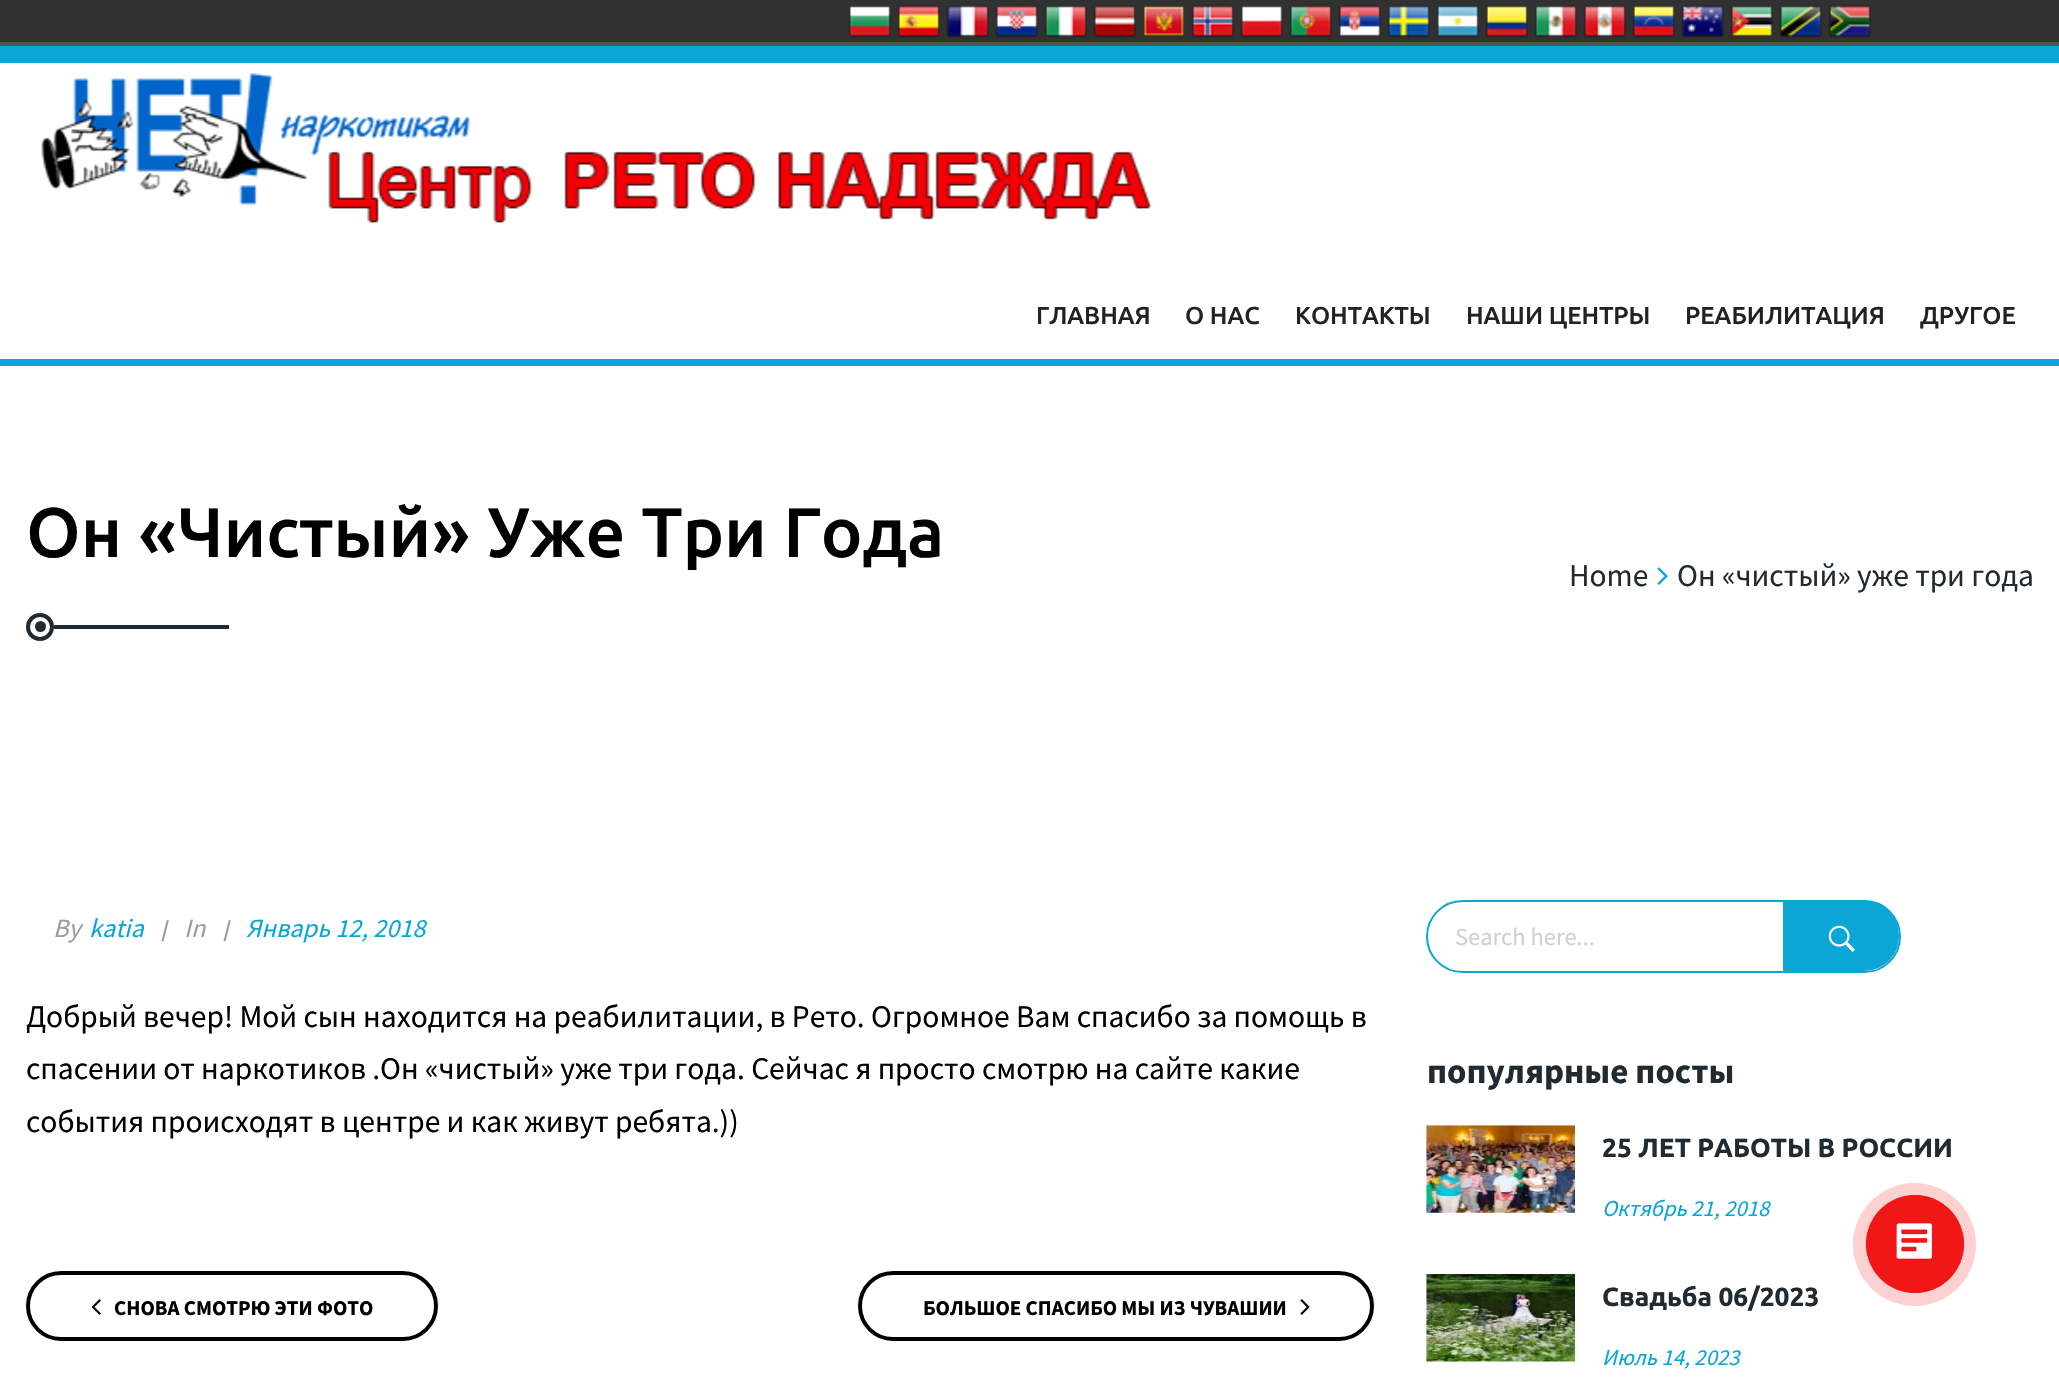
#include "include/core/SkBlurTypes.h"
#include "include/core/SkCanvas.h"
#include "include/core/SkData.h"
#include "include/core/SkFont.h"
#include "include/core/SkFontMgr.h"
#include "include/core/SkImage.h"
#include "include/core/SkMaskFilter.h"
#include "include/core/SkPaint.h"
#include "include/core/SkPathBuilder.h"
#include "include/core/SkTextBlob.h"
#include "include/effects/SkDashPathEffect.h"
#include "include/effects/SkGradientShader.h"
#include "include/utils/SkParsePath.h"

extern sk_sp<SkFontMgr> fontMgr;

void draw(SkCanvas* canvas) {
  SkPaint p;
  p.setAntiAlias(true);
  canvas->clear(SK_ColorWHITE);
  p.setColor(SkColorSetRGB(49, 49, 49));
  canvas->drawRect(SkRect::MakeLTRB(0, 0, 2059, 42), p);
  p.setColor(SkColorSetRGB(81, 81, 80));
  canvas->drawRect(SkRect::MakeLTRB(0, 42, 2059, 46), p);
  canvas->drawImageRect(SkImages::DeferredFromEncodedData(SkData::MakeFromFileName("images/1.png")), SkRect::MakeLTRB(848, 6, 891, 38), SkSamplingOptions());
  canvas->drawImageRect(SkImages::DeferredFromEncodedData(SkData::MakeFromFileName("images/2.png")), SkRect::MakeLTRB(897, 5, 940, 38), SkSamplingOptions());
  canvas->drawImageRect(SkImages::DeferredFromEncodedData(SkData::MakeFromFileName("images/3.png")), SkRect::MakeLTRB(946, 5, 989, 38), SkSamplingOptions());
  canvas->drawImageRect(SkImages::DeferredFromEncodedData(SkData::MakeFromFileName("images/4.png")), SkRect::MakeLTRB(995, 5, 1038, 38), SkSamplingOptions());
  canvas->drawImageRect(SkImages::DeferredFromEncodedData(SkData::MakeFromFileName("images/5.png")), SkRect::MakeLTRB(1044, 5, 1087, 38), SkSamplingOptions());
  canvas->drawImageRect(SkImages::DeferredFromEncodedData(SkData::MakeFromFileName("images/6.png")), SkRect::MakeLTRB(1093, 5, 1136, 38), SkSamplingOptions());
  canvas->drawImageRect(SkImages::DeferredFromEncodedData(SkData::MakeFromFileName("images/7.png")), SkRect::MakeLTRB(1142, 5, 1185, 38), SkSamplingOptions());
  canvas->drawImageRect(SkImages::DeferredFromEncodedData(SkData::MakeFromFileName("images/8.png")), SkRect::MakeLTRB(1191, 5, 1234, 38), SkSamplingOptions());
  canvas->drawImageRect(SkImages::DeferredFromEncodedData(SkData::MakeFromFileName("images/9.png")), SkRect::MakeLTRB(1240, 6, 1283, 38), SkSamplingOptions());
  canvas->drawImageRect(SkImages::DeferredFromEncodedData(SkData::MakeFromFileName("images/10.png")), SkRect::MakeLTRB(1289, 5, 1332, 38), SkSamplingOptions());
  canvas->drawImageRect(SkImages::DeferredFromEncodedData(SkData::MakeFromFileName("images/11.png")), SkRect::MakeLTRB(1338, 5, 1381, 37), SkSamplingOptions());
  canvas->drawImageRect(SkImages::DeferredFromEncodedData(SkData::MakeFromFileName("images/12.png")), SkRect::MakeLTRB(1387, 5, 1430, 38), SkSamplingOptions());
  canvas->drawImageRect(SkImages::DeferredFromEncodedData(SkData::MakeFromFileName("images/13.png")), SkRect::MakeLTRB(1437, 5, 1479, 38), SkSamplingOptions());
  canvas->drawImageRect(SkImages::DeferredFromEncodedData(SkData::MakeFromFileName("images/14.png")), SkRect::MakeLTRB(1485, 5, 1528, 38), SkSamplingOptions());
  canvas->drawImageRect(SkImages::DeferredFromEncodedData(SkData::MakeFromFileName("images/15.png")), SkRect::MakeLTRB(1534, 5, 1577, 38), SkSamplingOptions());
  canvas->drawImageRect(SkImages::DeferredFromEncodedData(SkData::MakeFromFileName("images/16.png")), SkRect::MakeLTRB(1583, 5, 1626, 38), SkSamplingOptions());
  canvas->drawImageRect(SkImages::DeferredFromEncodedData(SkData::MakeFromFileName("images/17.png")), SkRect::MakeLTRB(1632, 5, 1675, 38), SkSamplingOptions());
  canvas->drawImageRect(SkImages::DeferredFromEncodedData(SkData::MakeFromFileName("images/18.png")), SkRect::MakeLTRB(1681, 5, 1724, 38), SkSamplingOptions());
  canvas->drawImageRect(SkImages::DeferredFromEncodedData(SkData::MakeFromFileName("images/19.png")), SkRect::MakeLTRB(1730, 5, 1773, 38), SkSamplingOptions());
  canvas->drawImageRect(SkImages::DeferredFromEncodedData(SkData::MakeFromFileName("images/20.png")), SkRect::MakeLTRB(1779, 5, 1822, 38), SkSamplingOptions());
  canvas->drawImageRect(SkImages::DeferredFromEncodedData(SkData::MakeFromFileName("images/21.png")), SkRect::MakeLTRB(1828, 5, 1871, 38), SkSamplingOptions());
  p.setColor(SkColorSetRGB(10, 166, 214));
  canvas->drawRect(SkRect::MakeLTRB(0, 46, 2059, 63), p);
  canvas->drawRect(SkRect::MakeLTRB(0, 359, 2059, 366), p);
  canvas->drawImageRect(SkImages::DeferredFromEncodedData(SkData::MakeFromFileName("images/22.png")), SkRect::MakeLTRB(41, 73, 1152, 223), SkSamplingOptions());
  p.setStyle(SkPaint::kStroke_Style);
  p.setStrokeWidth(4);
  p.setColor(SkColorSetRGB(32, 42, 48));
  canvas->drawCircle(40, 627, 12, p);
  p.setStyle(SkPaint::kFill_Style);
  canvas->drawCircle(40.5f, 626.5f, 5.5f, p);
  canvas->drawRect(SkRect::MakeLTRB(54, 625, 229, 629), p);
  canvas->drawImageRect(SkImages::DeferredFromEncodedData(SkData::MakeFromFileName("images/23.png")), SkRect::MakeLTRB(1657, 567, 1668, 585), SkSamplingOptions());
  p.setStyle(SkPaint::kStroke_Style);
  p.setColor(SK_ColorBLACK);
  canvas->drawRoundRect(SkRect::MakeLTRB(28, 1273, 436, 1339), 33, 33, p);
  canvas->drawImageRect(SkImages::DeferredFromEncodedData(SkData::MakeFromFileName("images/24.png")), SkRect::MakeLTRB(91, 1299, 101, 1315), SkSamplingOptions());
  canvas->drawRoundRect(SkRect::MakeLTRB(860, 1273, 1372, 1339), 33, 33, p);
  canvas->drawImageRect(SkImages::DeferredFromEncodedData(SkData::MakeFromFileName("images/25.png")), SkRect::MakeLTRB(1300, 1299, 1310, 1315), SkSamplingOptions());
  p.setStrokeWidth(2);
  p.setColor(SkColorSetRGB(10, 166, 214));
  canvas->drawRoundRect(SkRect::MakeLTRB(1427, 901, 1900, 972), 35.5f, 35.5f, p);
  p.setStyle(SkPaint::kFill_Style);
  canvas->drawPath(SkPathBuilder().moveTo(1784, 902).lineTo(1864, 902).cubicTo(1883, 902, 1898, 917, 1898, 936).cubicTo(1898, 955, 1883, 970, 1864, 970).lineTo(1784, 970).close().detach(), p);
  p.setStyle(SkPaint::kStroke_Style);
  canvas->drawPath(SkPathBuilder().moveTo(1784, 902).lineTo(1864, 902).cubicTo(1883, 902, 1898, 917, 1898, 936).cubicTo(1898, 955, 1883, 970, 1864, 970).lineTo(1784, 970).close().detach(), p);
  canvas->drawImageRect(SkImages::DeferredFromEncodedData(SkData::MakeFromFileName("images/26.png")), SkRect::MakeLTRB(1828, 925, 1855, 952), SkSamplingOptions());
  canvas->drawImageRect(SkImages::DeferredFromEncodedData(SkData::MakeFromFileName("images/27.png")), SkRect::MakeLTRB(1426, 1125, 1575, 1213), SkSamplingOptions());
  canvas->drawImageRect(SkImages::DeferredFromEncodedData(SkData::MakeFromFileName("images/28.png")), SkRect::MakeLTRB(1426, 1274, 1575, 1362), SkSamplingOptions());
  p.setStyle(SkPaint::kFill_Style);
  p.setColor(SkColorSetRGB(252, 209, 208));
  canvas->drawCircle(1914.5f, 1244.5f, 61.5f, p);
  p.setStyle(SkPaint::kStroke_Style);
  p.setStrokeWidth(1);
  p.setColor(SkColorSetRGB(241, 23, 22));
  canvas->drawCircle(1915, 1244, 48.5f, p);
  p.setStyle(SkPaint::kFill_Style);
  canvas->drawCircle(1915, 1244, 49, p);
  canvas->drawImageRect(SkImages::DeferredFromEncodedData(SkData::MakeFromFileName("images/29.png")), SkRect::MakeLTRB(1896, 1223, 1932, 1259), SkSamplingOptions());
  SkFont font1(fontMgr->matchFamilyStyle("Ubuntu", SkFontStyle(500, SkFontStyle::kNormal_Width, SkFontStyle::kUpright_Slant)), 24.5f);
  font1.setSubpixel(true);
  p.setColor(SkColorSetRGB(34, 34, 34));
  canvas->drawString("ГЛАВНАЯ", 1036, 324, font1, p);
  canvas->drawString("О НАС", 1185, 324, font1, p);
  canvas->drawString("КОНТАКТЫ", 1295, 324, font1, p);
  canvas->drawString("НАШИ ЦЕНТРЫ", 1466, 324, font1, p);
  canvas->drawString("РЕАБИЛИТАЦИЯ", 1685, 324, font1, p);
  canvas->drawString("ДРУГОЕ", 1920, 324, font1, p);
  SkFont font2(fontMgr->matchFamilyStyle("Ubuntu", SkFontStyle(500, SkFontStyle::kNormal_Width, SkFontStyle::kUpright_Slant)), 70);
  font2.setSubpixel(true);
  p.setColor(SK_ColorBLACK);
  canvas->drawString("Он «Чистый» Уже Три Года", 26, 557, font2, p);
  SkFont font3(fontMgr->matchFamilyStyle("Source Sans Pro", SkFontStyle::Normal()), 31.5f);
  font3.setSubpixel(true);
  p.setColor(SkColorSetRGB(32, 42, 48));
  canvas->drawString("Home", 1569, 586, font3, p);
  canvas->drawString("Он «чистый» уже три года", 1677, 586, font3, p);
  SkFont font4(fontMgr->matchFamilyStyle("Source Sans Pro", SkFontStyle::Italic()), 26.25f);
  font4.setSubpixel(true);
  p.setColor(SkColorSetRGB(156, 156, 156));
  canvas->drawString("By", 53, 937, font4, p);
  p.setColor(SkColorSetRGB(10, 166, 214));
  canvas->drawString("katia", 89, 937, font4, p);
  SkFont font5(fontMgr->matchFamilyStyle("Source Sans Pro", SkFontStyle::BoldItalic()), 21);
  font5.setSubpixel(true);
  p.setColor(SkColorSetRGB(156, 156, 156));
  canvas->drawString("|", 161, 936, font5, p);
  canvas->drawString("In", 184, 937, font4, p);
  canvas->drawString("|", 223, 936, font5, p);
  p.setColor(SkColorSetRGB(10, 166, 214));
  canvas->drawString("Январь 12, 2018", 246, 937, font4, p);
  p.setColor(SK_ColorBLACK);
  canvas->drawString("Добрый вечер! Мой сын находится на реабилитации, в Рето. Огромное Вам спасибо за помощь в", 26, 1027, font3, p);
  canvas->drawString("спасении от наркотиков .Он «чистый» уже три года. Сейчас я просто смотрю на сайте какие", 26, 1079, font3, p);
  canvas->drawString("события происходят в центре и как живут ребята.))", 26, 1132, font3, p);
  SkFont font6(fontMgr->matchFamilyStyle("Source Sans Pro", SkFontStyle::Bold()), 21);
  font6.setSubpixel(true);
  canvas->drawString("СНОВА СМОТРЮ ЭТИ ФОТО", 114, 1315, font6, p);
  canvas->drawString("БОЛЬШОЕ СПАСИБО МЫ ИЗ ЧУВАШИИ", 923, 1315, font6, p);
  SkFont font7(fontMgr->matchFamilyStyle("Source Sans Pro", SkFontStyle::Normal()), 24.5f);
  font7.setSubpixel(true);
  p.setColor(SkColorSetRGB(208, 208, 208));
  canvas->drawString("Search here...", 1455, 945, font7, p);
  SkFont font8(fontMgr->matchFamilyStyle("Source Sans Pro", SkFontStyle::Bold()), 35);
  font8.setSubpixel(true);
  p.setColor(SkColorSetRGB(32, 42, 48));
  canvas->drawString("популярные посты", 1427, 1083, font8, p);
  SkFont font9(fontMgr->matchFamilyStyle("Ubuntu", SkFontStyle::Bold()), 26.25f);
  font9.setSubpixel(true);
  canvas->drawString("25 ЛЕТ РАБОТЫ В РОССИИ", 1602, 1157, font9, p);
  SkFont font10(fontMgr->matchFamilyStyle("Source Sans Pro", SkFontStyle::Italic()), 22.75f);
  font10.setSubpixel(true);
  p.setColor(SkColorSetRGB(10, 166, 214));
  canvas->drawString("Октябрь 21, 2018", 1602, 1216, font10, p);
  p.setColor(SkColorSetRGB(32, 42, 48));
  canvas->drawString("Свадьба 06/2023", 1602, 1306, font9, p);
  p.setColor(SkColorSetRGB(10, 166, 214));
  canvas->drawString("Июль 14, 2023", 1602, 1365, font10, p);
}
